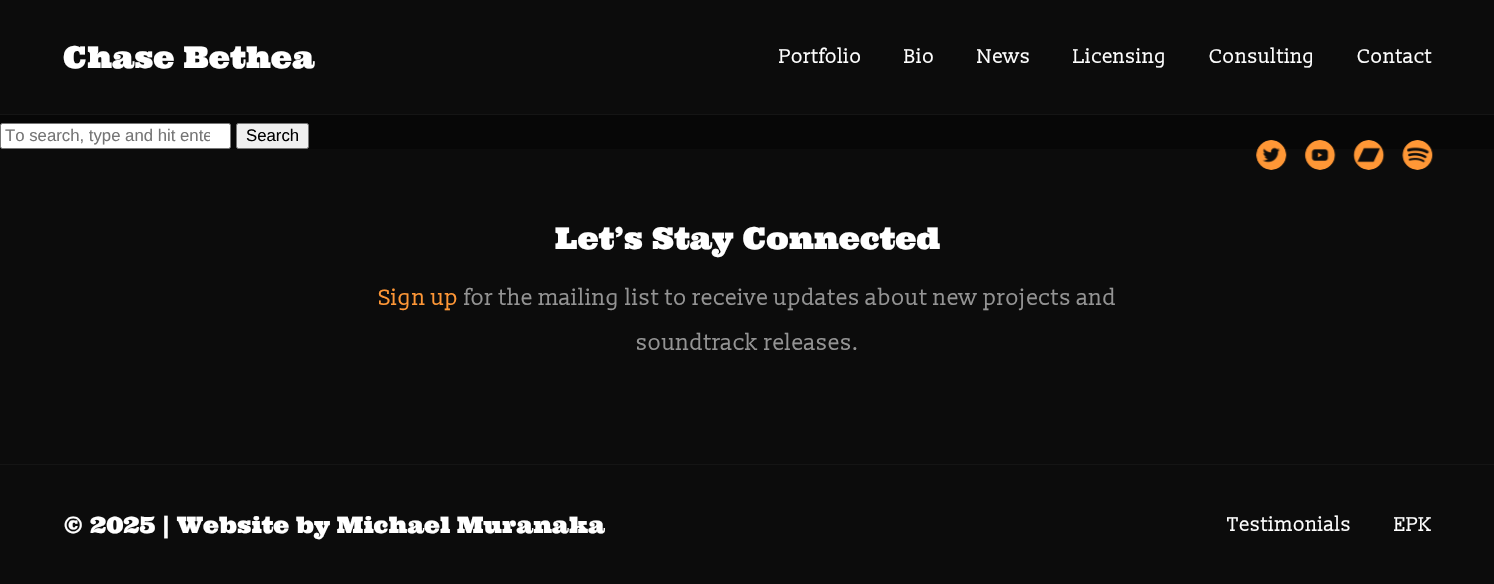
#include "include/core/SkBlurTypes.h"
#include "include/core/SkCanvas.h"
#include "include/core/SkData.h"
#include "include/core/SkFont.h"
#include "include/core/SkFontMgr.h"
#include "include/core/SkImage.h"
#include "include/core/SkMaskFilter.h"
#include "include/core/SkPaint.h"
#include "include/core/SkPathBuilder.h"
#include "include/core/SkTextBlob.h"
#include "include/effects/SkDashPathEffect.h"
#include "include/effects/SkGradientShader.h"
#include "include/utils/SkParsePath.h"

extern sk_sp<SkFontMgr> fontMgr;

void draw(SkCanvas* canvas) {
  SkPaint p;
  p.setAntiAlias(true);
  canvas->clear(SkColorSetRGB(7, 7, 7));
  p.setColor(SkColorSetRGB(12, 12, 12));
  canvas->drawRect(SkRect::MakeLTRB(0, 0, 1494, 114), p);
  p.setColor(SkColorSetRGB(21, 21, 21));
  canvas->drawRect(SkRect::MakeLTRB(0, 114, 1494, 115), p);
  p.setColor(SkColorSetRGB(12, 12, 12));
  canvas->drawRect(SkRect::MakeLTRB(0, 149, 1494, 464), p);
  canvas->drawImageRect(SkImages::DeferredFromEncodedData(SkData::MakeFromFileName("images/1.png")), SkRect::MakeLTRB(1256, 140, 1287, 170), SkSamplingOptions());
  canvas->drawImageRect(SkImages::DeferredFromEncodedData(SkData::MakeFromFileName("images/2.png")), SkRect::MakeLTRB(1304, 140, 1336, 170), SkSamplingOptions());
  canvas->drawImageRect(SkImages::DeferredFromEncodedData(SkData::MakeFromFileName("images/3.png")), SkRect::MakeLTRB(1353, 140, 1385, 170), SkSamplingOptions());
  canvas->drawImageRect(SkImages::DeferredFromEncodedData(SkData::MakeFromFileName("images/4.png")), SkRect::MakeLTRB(1402, 140, 1433, 170), SkSamplingOptions());
  p.setColor(SK_ColorWHITE);
  canvas->drawRoundRect(SkRect::MakeLTRB(0.5f, 123.5f, 230.5f, 148.5f), 2, 2, p);
  p.setStyle(SkPaint::kStroke_Style);
  p.setStrokeWidth(1);
  p.setColor(SkColorSetRGB(118, 118, 118));
  canvas->drawRoundRect(SkRect::MakeLTRB(0.5f, 123.5f, 230.5f, 148.5f), 2, 2, p);
  p.setStyle(SkPaint::kFill_Style);
  p.setColor(SkColorSetRGB(239, 239, 239));
  canvas->drawRoundRect(SkRect::MakeLTRB(236.5f, 123.5f, 308.5f, 148.5f), 2, 2, p);
  p.setStyle(SkPaint::kStroke_Style);
  p.setColor(SkColorSetRGB(118, 118, 118));
  canvas->drawRoundRect(SkRect::MakeLTRB(236.5f, 123.5f, 308.5f, 148.5f), 2, 2, p);
  p.setStyle(SkPaint::kFill_Style);
  p.setColor(SkColorSetRGB(12, 12, 12));
  canvas->drawRect(SkRect::MakeLTRB(0, 465, 1494, 584), p);
  p.setColor(SkColorSetRGB(21, 21, 21));
  canvas->drawRect(SkRect::MakeLTRB(0, 464, 1494, 465), p);
  SkFont font1(fontMgr->matchFamilyStyle("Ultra", SkFontStyle::Normal()), 30);
  font1.setSubpixel(true);
  p.setColor(SK_ColorWHITE);
  canvas->drawString("Chase Bethea", 63, 68, font1, p);
  SkFont font2(fontMgr->matchFamilyStyle("Slabo 13px", SkFontStyle::Normal()), 20);
  font2.setSubpixel(true);
  canvas->drawString("Portfolio", 779, 63, font2, p);
  canvas->drawString("Bio", 904, 63, font2, p);
  canvas->drawString("News", 977, 63, font2, p);
  canvas->drawString("Licensing", 1073, 63, font2, p);
  canvas->drawString("Consulting", 1209, 63, font2, p);
  canvas->drawString("Contact", 1357, 63, font2, p);
  canvas->save();
  canvas->clipRect(SkRect::MakeLTRB(5, 126, 210, 145));
  SkFont font3(fontMgr->matchFamilyStyle("Liberation Sans", SkFontStyle::Normal()), 16.75f);
  font3.setSubpixel(true);
  p.setColor(SkColorSetRGB(117, 117, 117));
  canvas->drawString("To search, type and hit ente", 5, 141, font3, p);
  canvas->restore();
  p.setColor(SK_ColorBLACK);
  canvas->drawString("Search", 246, 141, font3, p);
  p.setColor(SK_ColorWHITE);
  canvas->drawString("Let’s Stay Connected", 555, 249, font1, p);
  SkFont font4(fontMgr->matchFamilyStyle("Slabo 13px", SkFontStyle::Normal()), 22.5f);
  font4.setSubpixel(true);
  p.setColor(SkColorSetRGB(255, 151, 54));
  canvas->drawString("Sign up", 379, 305, font4, p);
  p.setColor(SkColorSetRGB(148, 148, 148));
  canvas->drawString("for the mailing list to receive updates about new projects and", 464, 305, font4, p);
  canvas->drawString("soundtrack releases.", 636, 350, font4, p);
  SkFont font5(fontMgr->matchFamilyStyle("Ultra", SkFontStyle::Normal()), 22.5f);
  font5.setSubpixel(true);
  p.setColor(SK_ColorWHITE);
  canvas->drawString("© 2025 | Website by Michael Muranaka", 63, 533, font5, p);
  canvas->drawString("Testimonials", 1227, 531, font2, p);
  canvas->drawString("EPK", 1394, 531, font2, p);
}
